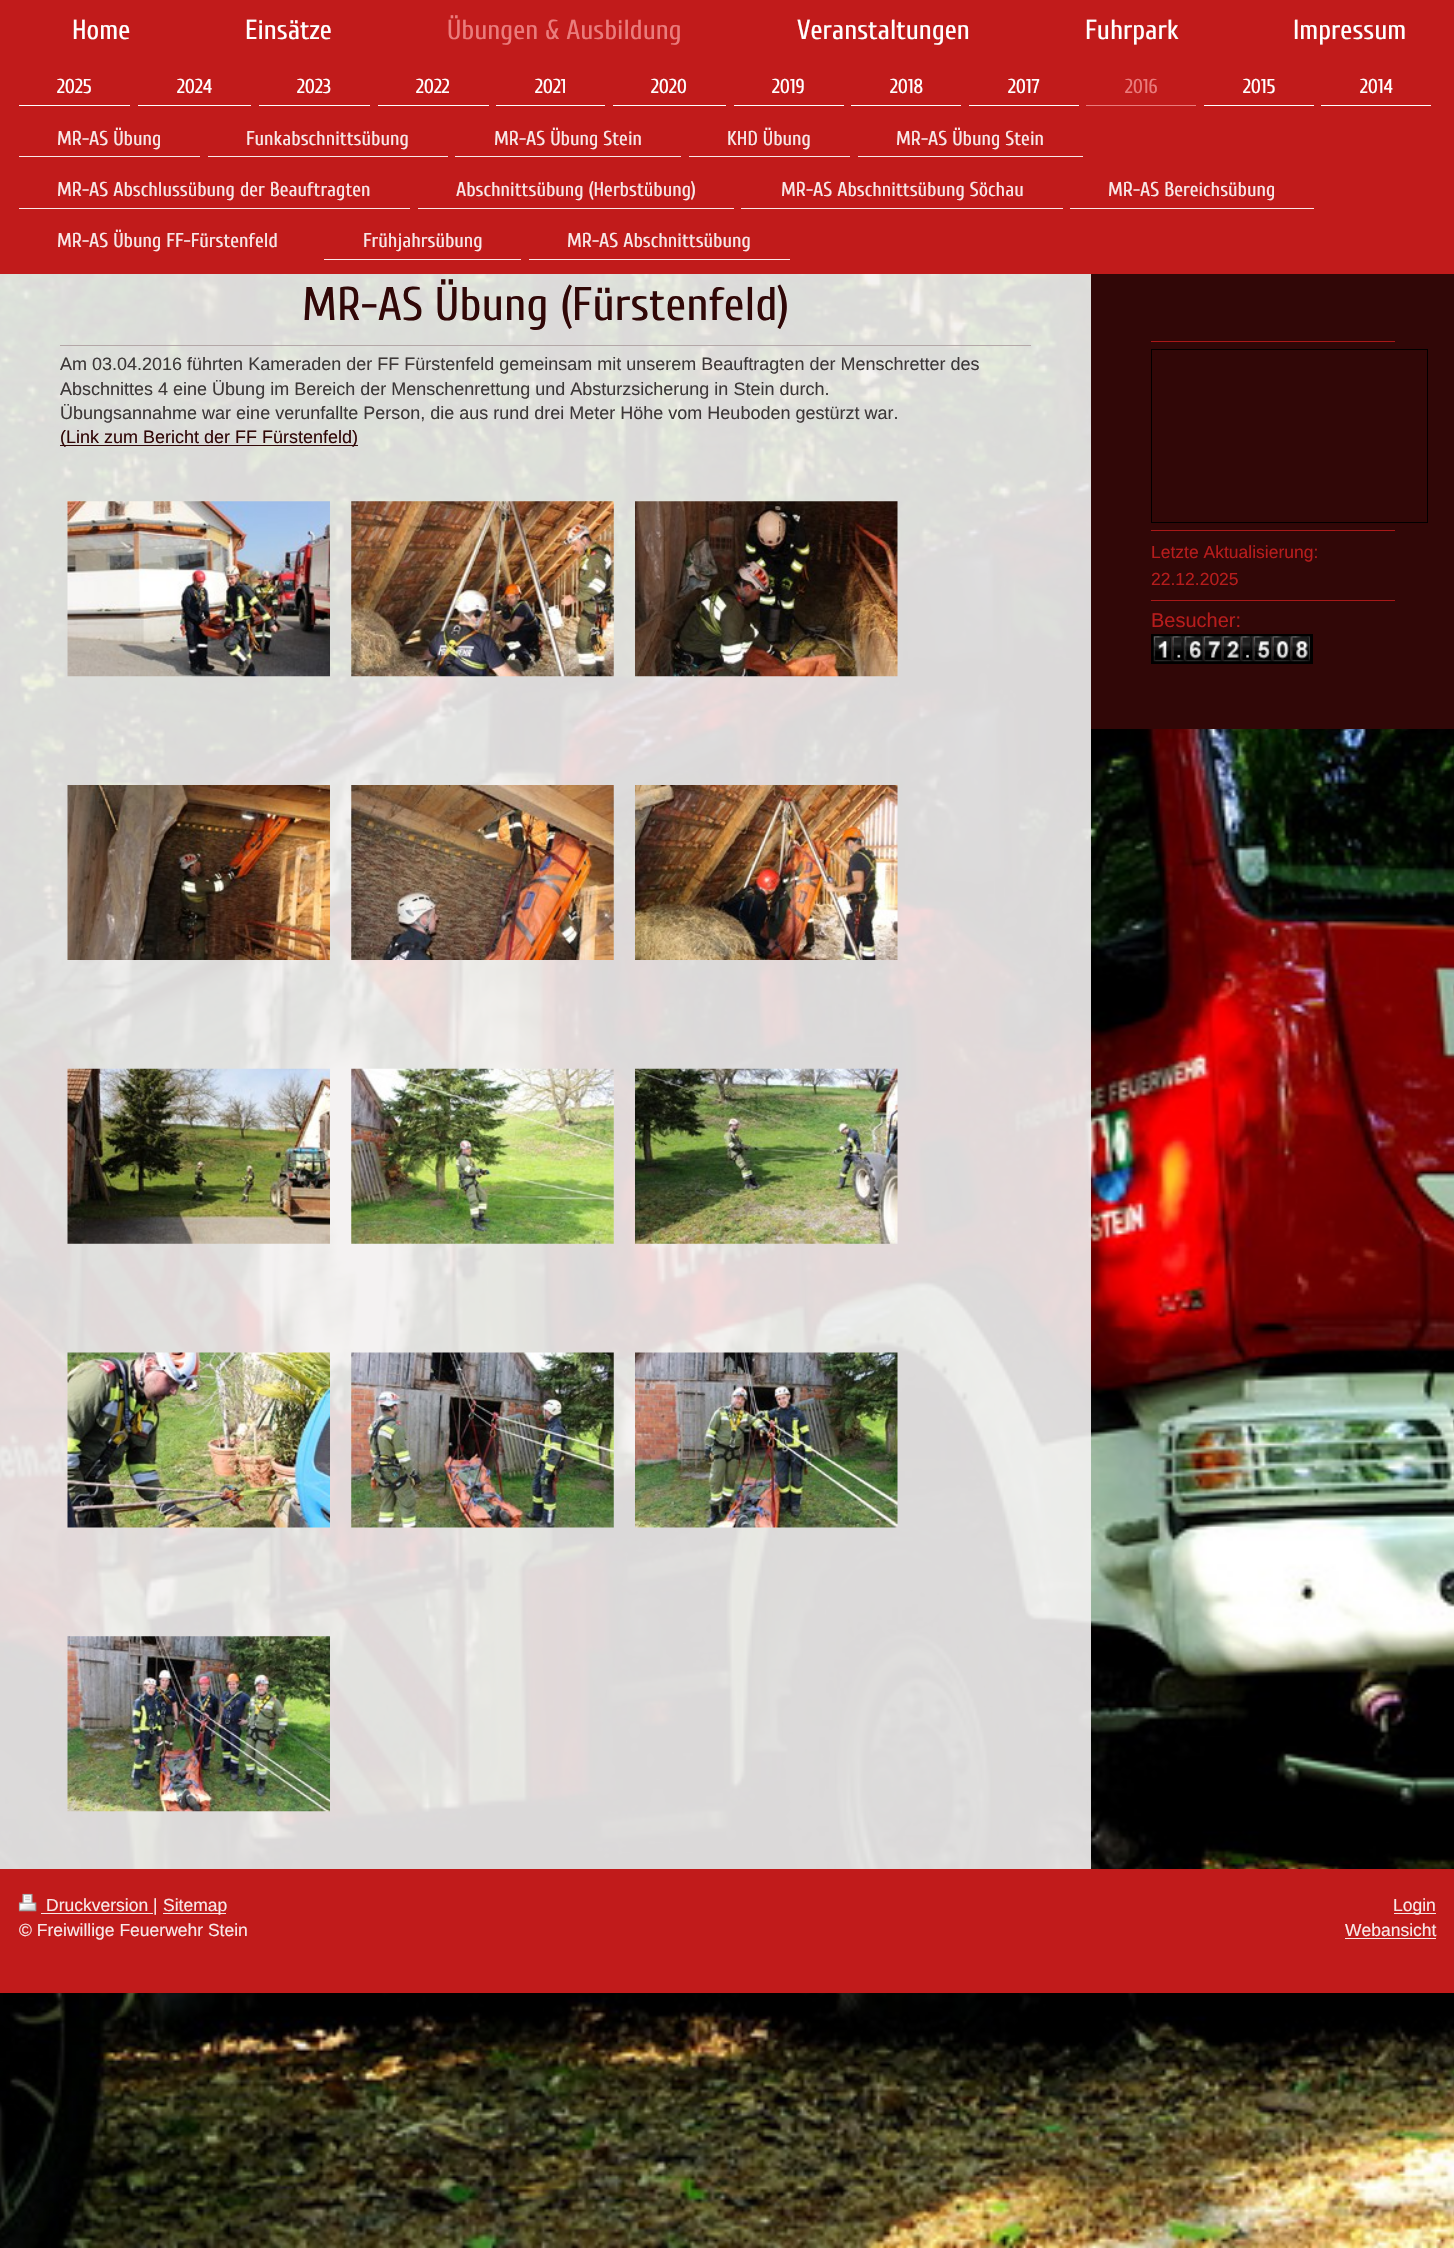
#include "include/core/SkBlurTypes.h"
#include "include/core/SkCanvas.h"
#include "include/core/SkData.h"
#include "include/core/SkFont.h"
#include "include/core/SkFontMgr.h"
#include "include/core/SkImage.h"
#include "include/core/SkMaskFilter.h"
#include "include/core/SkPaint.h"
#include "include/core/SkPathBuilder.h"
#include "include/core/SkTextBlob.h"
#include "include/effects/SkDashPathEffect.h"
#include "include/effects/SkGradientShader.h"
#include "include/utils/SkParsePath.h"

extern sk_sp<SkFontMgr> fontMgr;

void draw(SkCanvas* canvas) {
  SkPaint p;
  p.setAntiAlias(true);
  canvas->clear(SK_ColorWHITE);
  canvas->drawImageRect(SkImages::DeferredFromEncodedData(SkData::MakeFromFileName("images/1.png")), SkRect::MakeLTRB(0, 274, 1454, 2248), SkSamplingOptions());
  p.setColor(SkColorSetRGB(193, 27, 27));
  canvas->drawRect(SkRect::MakeLTRB(0, 0, 1454, 274), p);
  p.setColor(SK_ColorWHITE);
  canvas->drawRect(SkRect::MakeLTRB(19, 105, 130, 106), p);
  canvas->drawRect(SkRect::MakeLTRB(138, 105, 251, 106), p);
  canvas->drawRect(SkRect::MakeLTRB(259, 105, 370, 106), p);
  canvas->drawRect(SkRect::MakeLTRB(378, 105, 489, 106), p);
  canvas->drawRect(SkRect::MakeLTRB(496, 105, 605, 106), p);
  canvas->drawRect(SkRect::MakeLTRB(613, 105, 726, 106), p);
  canvas->drawRect(SkRect::MakeLTRB(734, 105, 844, 106), p);
  canvas->drawRect(SkRect::MakeLTRB(851, 105, 961, 106), p);
  canvas->drawRect(SkRect::MakeLTRB(969, 105, 1079, 106), p);
  p.setColor(SkColorSetRGB(234, 124, 124));
  canvas->drawRect(SkRect::MakeLTRB(1086, 105, 1196, 106), p);
  p.setColor(SK_ColorWHITE);
  canvas->drawRect(SkRect::MakeLTRB(1204, 105, 1314, 106), p);
  canvas->drawRect(SkRect::MakeLTRB(1321, 105, 1431, 106), p);
  p.setColor(SkColorSetRGB(249, 232, 232));
  canvas->drawRect(SkRect::MakeLTRB(19, 156, 200, 157), p);
  canvas->drawRect(SkRect::MakeLTRB(208, 156, 448, 157), p);
  canvas->drawRect(SkRect::MakeLTRB(455, 156, 681, 157), p);
  canvas->drawRect(SkRect::MakeLTRB(689, 156, 850, 157), p);
  canvas->drawRect(SkRect::MakeLTRB(858, 156, 1083, 157), p);
  canvas->drawRect(SkRect::MakeLTRB(19, 208, 410, 209), p);
  canvas->drawRect(SkRect::MakeLTRB(418, 208, 734, 209), p);
  canvas->drawRect(SkRect::MakeLTRB(741, 208, 1063, 209), p);
  canvas->drawRect(SkRect::MakeLTRB(1070, 208, 1314, 209), p);
  canvas->drawRect(SkRect::MakeLTRB(324, 259, 521, 260), p);
  canvas->drawRect(SkRect::MakeLTRB(529, 259, 790, 260), p);
  p.setColor(SkColorSetARGB(230, 243, 241, 241));
  canvas->drawRect(SkRect::MakeLTRB(0, 274, 1091, 1869), p);
  p.setColor(SkColorSetRGB(179, 167, 167));
  canvas->drawRect(SkRect::MakeLTRB(60, 345, 1031, 346), p);
  p.setColor(SkColorSetRGB(49, 7, 7));
  canvas->drawRect(SkRect::MakeLTRB(60, 445, 358, 446), p);
  canvas->drawImageRect(SkImages::DeferredFromEncodedData(SkData::MakeFromFileName("images/2.png")), SkRect::MakeLTRB(67, 501, 330, 677), SkSamplingOptions());
  canvas->drawImageRect(SkImages::DeferredFromEncodedData(SkData::MakeFromFileName("images/3.png")), SkRect::MakeLTRB(351, 501, 614, 677), SkSamplingOptions());
  canvas->drawImageRect(SkImages::DeferredFromEncodedData(SkData::MakeFromFileName("images/4.png")), SkRect::MakeLTRB(635, 501, 898, 677), SkSamplingOptions());
  canvas->drawImageRect(SkImages::DeferredFromEncodedData(SkData::MakeFromFileName("images/5.png")), SkRect::MakeLTRB(67, 785, 330, 960), SkSamplingOptions());
  canvas->drawImageRect(SkImages::DeferredFromEncodedData(SkData::MakeFromFileName("images/6.png")), SkRect::MakeLTRB(351, 785, 614, 960), SkSamplingOptions());
  canvas->drawImageRect(SkImages::DeferredFromEncodedData(SkData::MakeFromFileName("images/7.png")), SkRect::MakeLTRB(635, 785, 898, 960), SkSamplingOptions());
  canvas->drawImageRect(SkImages::DeferredFromEncodedData(SkData::MakeFromFileName("images/8.png")), SkRect::MakeLTRB(67, 1068, 330, 1244), SkSamplingOptions());
  canvas->drawImageRect(SkImages::DeferredFromEncodedData(SkData::MakeFromFileName("images/9.png")), SkRect::MakeLTRB(351, 1068, 614, 1244), SkSamplingOptions());
  canvas->drawImageRect(SkImages::DeferredFromEncodedData(SkData::MakeFromFileName("images/10.png")), SkRect::MakeLTRB(635, 1068, 898, 1244), SkSamplingOptions());
  canvas->drawImageRect(SkImages::DeferredFromEncodedData(SkData::MakeFromFileName("images/11.png")), SkRect::MakeLTRB(67, 1352, 330, 1528), SkSamplingOptions());
  canvas->drawImageRect(SkImages::DeferredFromEncodedData(SkData::MakeFromFileName("images/12.png")), SkRect::MakeLTRB(351, 1352, 614, 1528), SkSamplingOptions());
  canvas->drawImageRect(SkImages::DeferredFromEncodedData(SkData::MakeFromFileName("images/13.png")), SkRect::MakeLTRB(635, 1352, 898, 1528), SkSamplingOptions());
  canvas->drawImageRect(SkImages::DeferredFromEncodedData(SkData::MakeFromFileName("images/14.png")), SkRect::MakeLTRB(67, 1636, 330, 1812), SkSamplingOptions());
  canvas->drawRect(SkRect::MakeLTRB(1091, 274, 1454, 729), p);
  p.setColor(SkColorSetRGB(169, 24, 24));
  canvas->drawRect(SkRect::MakeLTRB(1151, 341, 1395, 342), p);
  p.setStyle(SkPaint::kStroke_Style);
  p.setStrokeWidth(1);
  p.setColor(SK_ColorBLACK);
  canvas->drawRect(SkRect::MakeLTRB(1151.5f, 349.5f, 1427.5f, 522.5f), p);
  p.setStyle(SkPaint::kFill_Style);
  p.setColor(SkColorSetRGB(169, 24, 24));
  canvas->drawRect(SkRect::MakeLTRB(1151, 530, 1395, 531), p);
  canvas->drawRect(SkRect::MakeLTRB(1151, 600, 1395, 601), p);
  p.setStyle(SkPaint::kStroke_Style);
  p.setStrokeWidth(3);
  p.setColor(SK_ColorBLACK);
  canvas->drawRect(SkRect::MakeLTRB(1152.5f, 635.5f, 1311.5f, 662.5f), p);
  canvas->drawImageRect(SkImages::DeferredFromEncodedData(SkData::MakeFromFileName("images/15.png")), SkRect::MakeLTRB(1153, 636, 1173, 662), SkSamplingOptions());
  canvas->drawImageRect(SkImages::DeferredFromEncodedData(SkData::MakeFromFileName("images/16.png")), SkRect::MakeLTRB(1172, 636, 1185, 662), SkSamplingOptions());
  canvas->drawImageRect(SkImages::DeferredFromEncodedData(SkData::MakeFromFileName("images/17.png")), SkRect::MakeLTRB(1185, 636, 1204, 662), SkSamplingOptions());
  canvas->drawImageRect(SkImages::DeferredFromEncodedData(SkData::MakeFromFileName("images/18.png")), SkRect::MakeLTRB(1203, 636, 1223, 662), SkSamplingOptions());
  canvas->drawImageRect(SkImages::DeferredFromEncodedData(SkData::MakeFromFileName("images/19.png")), SkRect::MakeLTRB(1222, 636, 1242, 662), SkSamplingOptions());
  canvas->drawImageRect(SkImages::DeferredFromEncodedData(SkData::MakeFromFileName("images/20.png")), SkRect::MakeLTRB(1241, 636, 1254, 662), SkSamplingOptions());
  canvas->drawImageRect(SkImages::DeferredFromEncodedData(SkData::MakeFromFileName("images/21.png")), SkRect::MakeLTRB(1253, 636, 1273, 662), SkSamplingOptions());
  canvas->drawImageRect(SkImages::DeferredFromEncodedData(SkData::MakeFromFileName("images/22.png")), SkRect::MakeLTRB(1272, 636, 1292, 662), SkSamplingOptions());
  canvas->drawImageRect(SkImages::DeferredFromEncodedData(SkData::MakeFromFileName("images/23.png")), SkRect::MakeLTRB(1291, 636, 1310, 662), SkSamplingOptions());
  p.setStyle(SkPaint::kFill_Style);
  p.setColor(SkColorSetRGB(193, 27, 27));
  canvas->drawRect(SkRect::MakeLTRB(0, 1869, 1454, 1993), p);
  canvas->drawImageRect(SkImages::DeferredFromEncodedData(SkData::MakeFromFileName("images/24.png")), SkRect::MakeLTRB(18, 1893, 37, 1912), SkSamplingOptions());
  p.setColor(SkColorSetRGB(249, 232, 232));
  canvas->drawRect(SkRect::MakeLTRB(41, 1913, 153, 1914), p);
  canvas->drawRect(SkRect::MakeLTRB(163, 1913, 226, 1914), p);
  canvas->drawRect(SkRect::MakeLTRB(1394, 1913, 1436, 1914), p);
  canvas->drawRect(SkRect::MakeLTRB(1345, 1938, 1436, 1939), p);
  SkFont font1(fontMgr->matchFamilyStyle("Cuprum", SkFontStyle::Normal()), 27.5f);
  font1.setSubpixel(true);
  p.setColor(SK_ColorWHITE);
  canvas->drawString("Home", 72, 39, font1, p);
  canvas->drawString("Einsätze", 245, 39, font1, p);
  p.setColor(SkColorSetRGB(234, 124, 124));
  canvas->drawString("Übungen & Ausbildung", 447, 39, font1, p);
  p.setColor(SK_ColorWHITE);
  canvas->drawString("Veranstaltungen", 797, 39, font1, p);
  canvas->drawString("Fuhrpark", 1085, 39, font1, p);
  canvas->drawString("Impressum", 1293, 39, font1, p);
  SkFont font2(fontMgr->matchFamilyStyle("Cuprum", SkFontStyle::Normal()), 20);
  font2.setSubpixel(true);
  canvas->drawString("2025", 57, 93, font2, p);
  canvas->drawString("2024", 177, 93, font2, p);
  canvas->drawString("2023", 297, 93, font2, p);
  canvas->drawString("2022", 416, 93, font2, p);
  canvas->drawString("2021", 535, 93, font2, p);
  canvas->drawString("2020", 651, 93, font2, p);
  canvas->drawString("2019", 772, 93, font2, p);
  canvas->drawString("2018", 890, 93, font2, p);
  canvas->drawString("2017", 1008, 93, font2, p);
  p.setColor(SkColorSetRGB(234, 124, 124));
  canvas->drawString("2016", 1125, 93, font2, p);
  p.setColor(SK_ColorWHITE);
  canvas->drawString("2015", 1243, 93, font2, p);
  canvas->drawString("2014", 1360, 93, font2, p);
  p.setColor(SkColorSetRGB(249, 232, 232));
  canvas->drawString("MR-AS Übung", 57, 145, font2, p);
  canvas->drawString("Funkabschnittsübung", 246, 145, font2, p);
  canvas->drawString("MR-AS Übung Stein", 494, 145, font2, p);
  canvas->drawString("KHD Übung", 727, 145, font2, p);
  canvas->drawString("MR-AS Übung Stein", 896, 145, font2, p);
  canvas->drawString("MR-AS Abschlussübung der Beauftragten", 57, 196, font2, p);
  canvas->drawString("Abschnittsübung (Herbstübung)", 456, 196, font2, p);
  canvas->drawString("MR-AS Abschnittsübung Söchau", 781, 196, font2, p);
  canvas->drawString("MR-AS Bereichsübung", 1108, 196, font2, p);
  canvas->drawString("MR-AS Übung FF-Fürstenfeld", 57, 247, font2, p);
  canvas->drawString("Frühjahrsübung", 363, 247, font2, p);
  canvas->drawString("MR-AS Abschnittsübung", 567, 247, font2, p);
  SkFont font3(fontMgr->matchFamilyStyle("Cuprum", SkFontStyle::Normal()), 47.25f);
  font3.setSubpixel(true);
  p.setColor(SkColorSetRGB(49, 7, 7));
  canvas->drawString("MR-AS Übung (Fürstenfeld)", 302, 320, font3, p);
  SkFont font4(fontMgr->matchFamilyStyle("Liberation Sans", SkFontStyle::Normal()), 18);
  font4.setSubpixel(true);
  p.setColor(SkColorSetRGB(61, 56, 56));
  canvas->drawString("Am 03.04.2016 führten Kameraden der FF Fürstenfeld gemeinsam mit unserem Beauftragten der Menschretter des", 60, 370, font4, p);
  canvas->drawString("Abschnittes 4 eine Übung im Bereich der Menschenrettung und Absturzsicherung in Stein durch.", 60, 395, font4, p);
  canvas->drawString("Übungsannahme war eine verunfallte Person, die aus rund drei Meter Höhe vom Heuboden gestürzt war.", 60, 419, font4, p);
  p.setColor(SkColorSetRGB(49, 7, 7));
  canvas->drawString("(Link zum Bericht der FF Fürstenfeld)", 60, 443, font4, p);
  SkFont font5(fontMgr->matchFamilyStyle("Liberation Sans", SkFontStyle::Normal()), 17.5f);
  font5.setSubpixel(true);
  p.setColor(SkColorSetRGB(183, 28, 28));
  canvas->drawString("Letzte Aktualisierung:", 1151, 558, font5, p);
  canvas->drawString("22.12.2025", 1151, 585, font5, p);
  SkFont font6(fontMgr->matchFamilyStyle("Liberation Sans", SkFontStyle::Normal()), 20);
  font6.setSubpixel(true);
  canvas->drawString("Besucher:", 1151, 627, font6, p);
  p.setColor(SkColorSetRGB(249, 232, 232));
  canvas->drawString("Druckversion |", 46, 1911, font5, p);
  canvas->drawString("Sitemap", 163, 1911, font5, p);
  canvas->drawString("© Freiwillige Feuerwehr Stein", 19, 1936, font5, p);
  canvas->drawString("Login", 1393, 1911, font5, p);
  canvas->drawString("Webansicht", 1345, 1936, font5, p);
}
